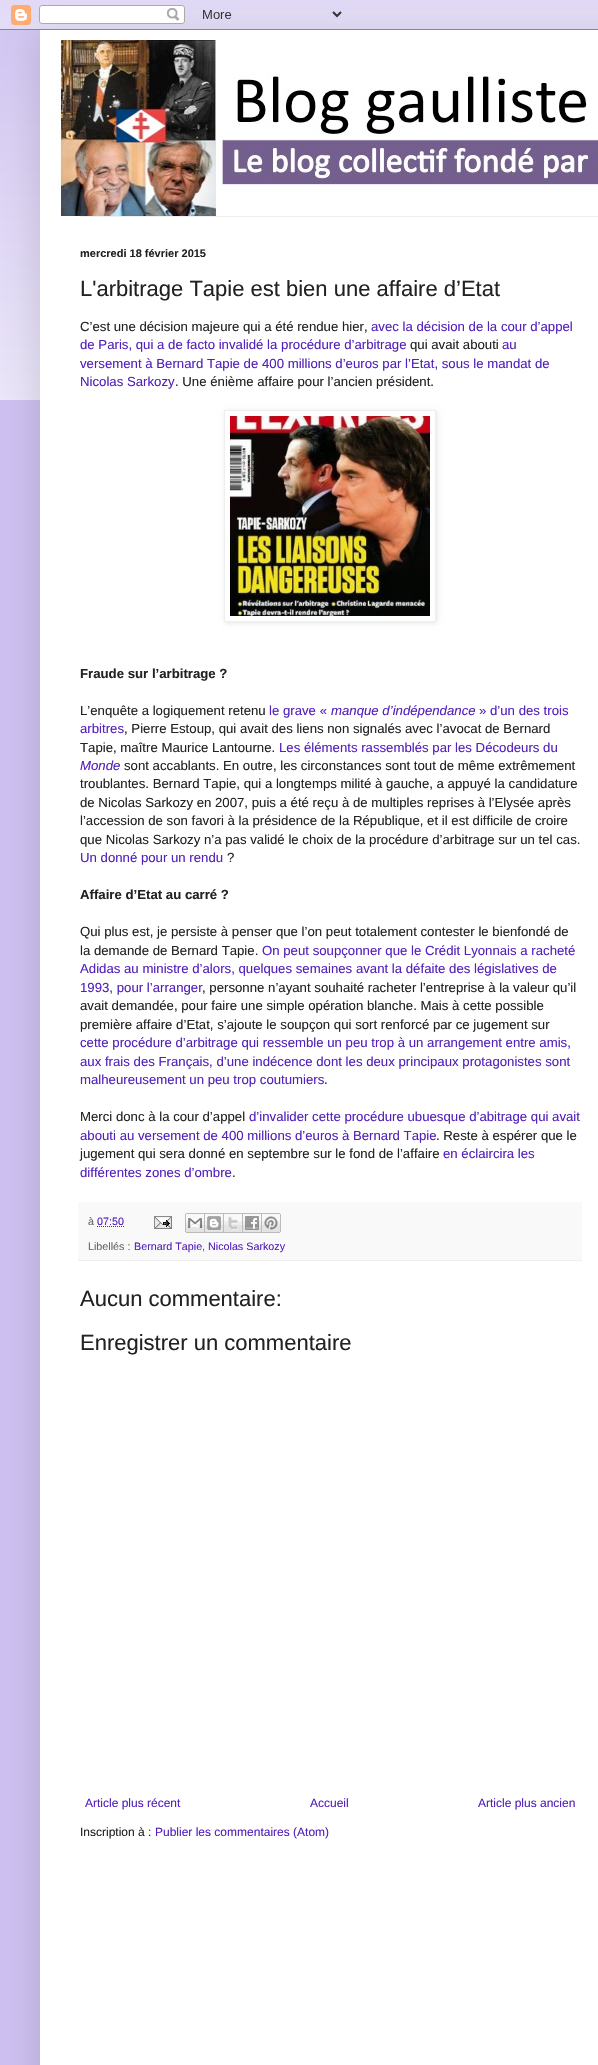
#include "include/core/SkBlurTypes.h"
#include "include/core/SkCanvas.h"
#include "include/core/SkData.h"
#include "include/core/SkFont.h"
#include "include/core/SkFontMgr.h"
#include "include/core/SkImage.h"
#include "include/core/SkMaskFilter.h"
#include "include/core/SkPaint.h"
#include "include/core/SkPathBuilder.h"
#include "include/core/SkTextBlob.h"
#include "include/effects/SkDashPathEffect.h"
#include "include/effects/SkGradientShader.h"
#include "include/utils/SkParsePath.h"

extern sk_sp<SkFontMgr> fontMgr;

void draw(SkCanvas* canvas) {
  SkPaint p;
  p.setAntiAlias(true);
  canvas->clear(SkColorSetRGB(207, 194, 242));
  canvas->drawImageRect(SkImages::DeferredFromEncodedData(SkData::MakeFromFileName("images/2.png")), SkRect::MakeLTRB(0, 10, 598, 400), SkSamplingOptions());
  p.setColor(SkColorSetARGB(38, 0, 0, 0));
  p.setMaskFilter(SkMaskFilter::MakeBlur(kNormal_SkBlurStyle, 20));
  canvas->drawRect(SkRect::MakeLTRB(40, 30, 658, 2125), p);
  p.setMaskFilter(nullptr);
  canvas->drawImageRect(SkImages::DeferredFromEncodedData(SkData::MakeFromFileName("images/1.png")), SkRect::MakeLTRB(0, 0, 598, 30), SkSamplingOptions());
  p.setColor(SK_ColorWHITE);
  canvas->drawRect(SkRect::MakeLTRB(40, 30, 598, 2065), p);
  canvas->drawImageRect(SkImages::DeferredFromEncodedData(SkData::MakeFromFileName("images/3.png")), SkRect::MakeLTRB(50, 40, 598, 216), SkSamplingOptions());
  p.setColor(SkColorSetRGB(238, 238, 238));
  canvas->drawRect(SkRect::MakeLTRB(80, 216, 598, 217), p);
  canvas->save();
  canvas->clipPath(SkPathBuilder(SkPathFillType::kEvenOdd).moveTo(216, 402).lineTo(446, 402).lineTo(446, 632).lineTo(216, 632).close().moveTo(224, 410).lineTo(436, 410).lineTo(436, 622).lineTo(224, 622).close().detach(), true);
  p.setColor(SkColorSetARGB(26, 0, 0, 0));
  p.setMaskFilter(SkMaskFilter::MakeBlur(kNormal_SkBlurStyle, 2.5f));
  canvas->drawRect(SkRect::MakeLTRB(225, 411, 437, 623), p);
  p.setMaskFilter(nullptr);
  canvas->restore();
  p.setStyle(SkPaint::kStroke_Style);
  p.setStrokeWidth(1);
  p.setColor(SkColorSetRGB(238, 238, 238));
  canvas->drawRect(SkRect::MakeLTRB(224.5f, 410.5f, 435.5f, 621.5f), p);
  canvas->drawImageRect(SkImages::DeferredFromEncodedData(SkData::MakeFromFileName("images/4.png")), SkRect::MakeLTRB(230, 416, 430, 616), SkSamplingOptions());
  p.setStyle(SkPaint::kFill_Style);
  p.setColor(SkColorSetRGB(249, 249, 249));
  canvas->drawRect(SkRect::MakeLTRB(78, 1202, 582, 1260), p);
  p.setColor(SkColorSetRGB(238, 238, 238));
  canvas->drawRect(SkRect::MakeLTRB(78, 1260, 582, 1261), p);
  p.setStyle(SkPaint::kStroke_Style);
  p.setColor(SkColorSetRGB(83, 33, 187));
  p.setPathEffect(SkDashPathEffect::Make({{1, 1}}, 0));
  canvas->drawPath(SkPathBuilder().moveTo(97, 1226.5f).lineTo(124, 1226.5f).detach(), p);
  p.setPathEffect(nullptr);
  canvas->drawImageRect(SkImages::DeferredFromEncodedData(SkData::MakeFromFileName("images/5.png")), SkRect::MakeLTRB(154, 1216, 172, 1229), SkSamplingOptions());
  canvas->drawImageRect(SkImages::DeferredFromEncodedData(SkData::MakeFromFileName("images/6.png")), SkRect::MakeLTRB(185, 1213, 205, 1233), SkSamplingOptions());
  canvas->drawImageRect(SkImages::DeferredFromEncodedData(SkData::MakeFromFileName("images/7.png")), SkRect::MakeLTRB(205, 1213, 224, 1233), SkSamplingOptions());
  canvas->drawImageRect(SkImages::DeferredFromEncodedData(SkData::MakeFromFileName("images/8.png")), SkRect::MakeLTRB(224, 1213, 243, 1233), SkSamplingOptions());
  canvas->drawImageRect(SkImages::DeferredFromEncodedData(SkData::MakeFromFileName("images/9.png")), SkRect::MakeLTRB(243, 1213, 262, 1233), SkSamplingOptions());
  canvas->drawImageRect(SkImages::DeferredFromEncodedData(SkData::MakeFromFileName("images/10.png")), SkRect::MakeLTRB(262, 1213, 281, 1233), SkSamplingOptions());
  SkFont font1(fontMgr->matchFamilyStyle("Liberation Sans", SkFontStyle::Bold()), 11);
  font1.setSubpixel(true);
  p.setStyle(SkPaint::kFill_Style);
  p.setColor(SkColorSetRGB(34, 34, 34));
  canvas->drawString("mercredi 18 février 2015", 80, 257, font1, p);
  SkFont font2(fontMgr->matchFamilyStyle("Liberation Sans", SkFontStyle::Normal()), 22);
  font2.setSubpixel(true);
  canvas->drawString("L'arbitrage Tapie est bien une affaire d’Etat", 80, 296, font2, p);
  SkFont font3(fontMgr->matchFamilyStyle("Liberation Sans", SkFontStyle::Normal()), 13.2f);
  font3.setSubpixel(true);
  canvas->drawString("C’est une décision majeure qui a été rendue hier,", 80, 331, font3, p);
  p.setColor(SkColorSetRGB(83, 33, 187));
  canvas->drawString("avec la décision de la cour d’appel", 371, 331, font3, p);
  canvas->drawString("de Paris, qui a de facto invalidé la procédure d’arbitrage", 80, 349, font3, p);
  p.setColor(SkColorSetRGB(34, 34, 34));
  canvas->drawString("qui avait abouti", 410, 349, font3, p);
  p.setColor(SkColorSetRGB(83, 33, 187));
  canvas->drawString("au", 502, 349, font3, p);
  canvas->drawString("versement à Bernard Tapie de 400 millions d’euros par l’Etat, sous le mandat de", 80, 368, font3, p);
  canvas->drawString("Nicolas Sarkozy", 80, 386, font3, p);
  p.setColor(SkColorSetRGB(34, 34, 34));
  canvas->drawString(". Une énième affaire pour l’ancien président.", 175, 386, font3, p);
  SkFont font4(fontMgr->matchFamilyStyle("Liberation Sans", SkFontStyle::Bold()), 13.2f);
  font4.setSubpixel(true);
  canvas->drawString("Fraude sur l’arbitrage ?", 80, 678, font4, p);
  canvas->drawString("L’enquête a logiquement retenu", 80, 715, font3, p);
  p.setColor(SkColorSetRGB(83, 33, 187));
  canvas->drawString("le grave «", 269, 715, font3, p);
  SkFont font5(fontMgr->matchFamilyStyle("Liberation Sans", SkFontStyle::Italic()), 13.2f);
  font5.setSubpixel(true);
  canvas->drawString("manque d’indépendance", 331, 715, font5, p);
  canvas->drawString("» d’un des trois", 479, 715, font3, p);
  canvas->drawString("arbitres", 80, 733, font3, p);
  p.setColor(SkColorSetRGB(34, 34, 34));
  canvas->drawString(", Pierre Estoup, qui avait des liens non signalés avec l’avocat de Bernard", 124, 733, font3, p);
  canvas->drawString("Tapie, maître Maurice Lantourne.", 80, 752, font3, p);
  p.setColor(SkColorSetRGB(83, 33, 187));
  canvas->drawString("Les éléments rassemblés par les Décodeurs du", 279, 752, font3, p);
  canvas->drawString("Monde", 80, 770, font5, p);
  p.setColor(SkColorSetRGB(34, 34, 34));
  canvas->drawString("sont accablants. En outre, les circonstances sont tout de même extrêmement", 124, 770, font3, p);
  canvas->drawString("troublantes. Bernard Tapie, qui a longtemps milité à gauche, a appuyé la candidature", 80, 788, font3, p);
  canvas->drawString("de Nicolas Sarkozy en 2007, puis a été reçu à de multiples reprises à l’Elysée après", 80, 807, font3, p);
  canvas->drawString("l’accession de son favori à la présidence de la République, et il est difficile de croire", 80, 825, font3, p);
  canvas->drawString("que Nicolas Sarkozy n’a pas validé le choix de la procédure d’arbitrage sur un tel cas.", 80, 844, font3, p);
  p.setColor(SkColorSetRGB(83, 33, 187));
  canvas->drawString("Un donné pour un rendu", 80, 862, font3, p);
  p.setColor(SkColorSetRGB(34, 34, 34));
  canvas->drawString("?", 227, 862, font3, p);
  canvas->drawString("Affaire d’Etat au carré ?", 80, 899, font4, p);
  canvas->drawString("Qui plus est, je persiste à penser que l’on peut totalement contester le bienfondé de", 80, 936, font3, p);
  canvas->drawString("la demande de Bernard Tapie.", 80, 955, font3, p);
  p.setColor(SkColorSetRGB(83, 33, 187));
  canvas->drawString("On peut soupçonner que le Crédit Lyonnais a racheté", 262, 955, font3, p);
  canvas->drawString("Adidas au ministre d’alors, quelques semaines avant la défaite des législatives de", 80, 973, font3, p);
  canvas->drawString("1993, pour l’arranger", 80, 992, font3, p);
  p.setColor(SkColorSetRGB(34, 34, 34));
  canvas->drawString(", personne n’ayant souhaité racheter l’entreprise à la valeur qu’il", 202, 992, font3, p);
  canvas->drawString("avait demandée, pour faire une simple opération blanche. Mais à cette possible", 80, 1010, font3, p);
  canvas->drawString("première affaire d’Etat, s’ajoute le soupçon qui sort renforcé par ce jugement sur", 80, 1029, font3, p);
  p.setColor(SkColorSetRGB(83, 33, 187));
  canvas->drawString("cette procédure d’arbitrage qui ressemble un peu trop à un arrangement entre amis,", 80, 1047, font3, p);
  canvas->drawString("aux frais des Français, d’une indécence dont les deux principaux protagonistes sont", 80, 1066, font3, p);
  canvas->drawString("malheureusement un peu trop coutumiers", 80, 1084, font3, p);
  p.setColor(SkColorSetRGB(34, 34, 34));
  canvas->drawString(".", 324, 1084, font3, p);
  canvas->drawString("Merci donc à la cour d’appel", 80, 1121, font3, p);
  p.setColor(SkColorSetRGB(83, 33, 187));
  canvas->drawString("d’invalider cette procédure ubuesque d’abitrage qui avait", 249, 1121, font3, p);
  canvas->drawString("abouti au versement de 400 millions d’euros à Bernard Tapie", 80, 1140, font3, p);
  p.setColor(SkColorSetRGB(34, 34, 34));
  canvas->drawString(". Reste à espérer que le", 436, 1140, font3, p);
  canvas->drawString("jugement qui sera donné en septembre sur le fond de l’affaire", 80, 1158, font3, p);
  p.setColor(SkColorSetRGB(83, 33, 187));
  canvas->drawString("en éclaircira les", 443, 1158, font3, p);
  canvas->drawString("différentes zones d’ombre", 80, 1177, font3, p);
  p.setColor(SkColorSetRGB(34, 34, 34));
  canvas->drawString(".", 232, 1177, font3, p);
  SkFont font6(fontMgr->matchFamilyStyle("Liberation Sans", SkFontStyle::Normal()), 10.75f);
  font6.setSubpixel(true);
  p.setColor(SkColorSetRGB(102, 102, 102));
  canvas->drawString("à", 88, 1225, font6, p);
  p.setColor(SkColorSetRGB(83, 33, 187));
  canvas->drawString("07:50", 97, 1225, font6, p);
  p.setColor(SkColorSetRGB(102, 102, 102));
  canvas->drawString("Libellés :", 88, 1250, font6, p);
  p.setColor(SkColorSetRGB(83, 33, 187));
  canvas->drawString("Bernard Tapie", 134, 1250, font6, p);
  p.setColor(SkColorSetRGB(102, 102, 102));
  canvas->drawString(",", 202, 1250, font6, p);
  p.setColor(SkColorSetRGB(83, 33, 187));
  canvas->drawString("Nicolas Sarkozy", 208, 1250, font6, p);
  p.setColor(SkColorSetRGB(34, 34, 34));
  canvas->drawString("Aucun commentaire:", 80, 1306, font2, p);
  canvas->drawString("Enregistrer un commentaire", 80, 1350, font2, p);
  SkFont font7(fontMgr->matchFamilyStyle("Liberation Sans", SkFontStyle::Normal()), 12);
  font7.setSubpixel(true);
  p.setColor(SkColorSetRGB(83, 33, 187));
  canvas->drawString("Article plus récent", 85, 1807, font7, p);
  canvas->drawString("Accueil", 310, 1807, font7, p);
  canvas->drawString("Article plus ancien", 478, 1807, font7, p);
  p.setColor(SkColorSetRGB(34, 34, 34));
  canvas->drawString("Inscription à :", 80, 1836, font7, p);
  p.setColor(SkColorSetRGB(83, 33, 187));
  canvas->drawString("Publier les commentaires (Atom)", 155, 1836, font7, p);
}
